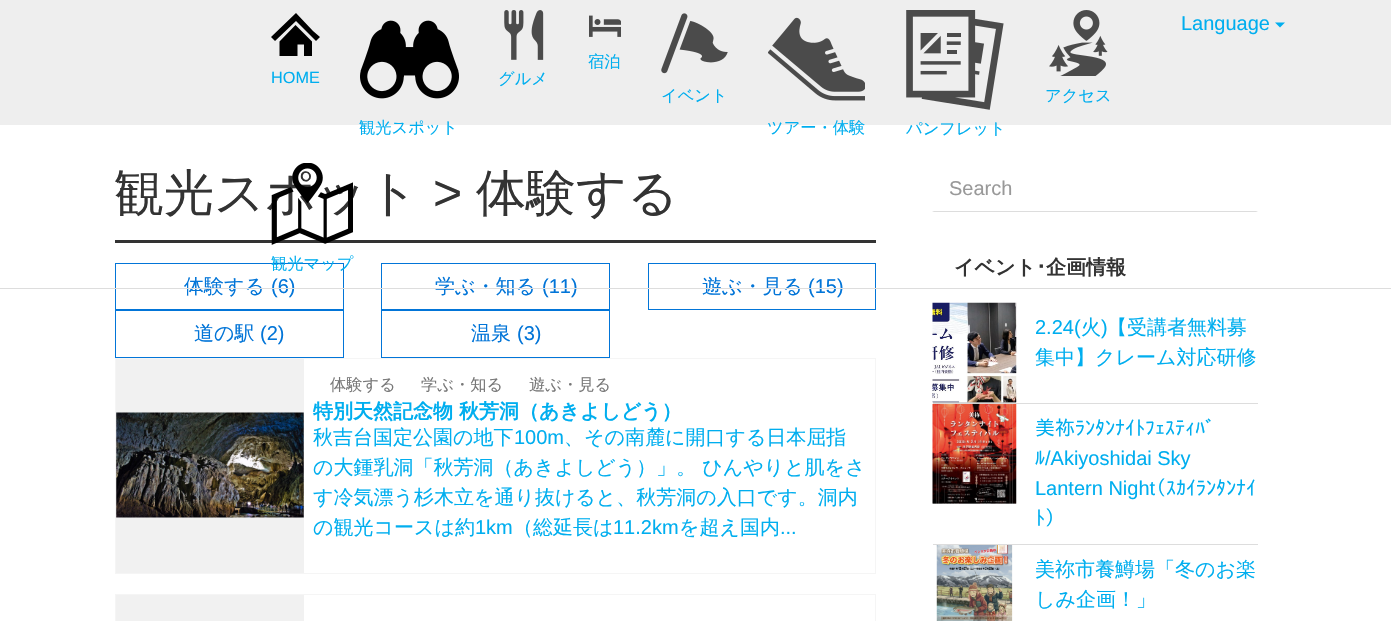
#include "include/core/SkBlurTypes.h"
#include "include/core/SkCanvas.h"
#include "include/core/SkData.h"
#include "include/core/SkFont.h"
#include "include/core/SkFontMgr.h"
#include "include/core/SkImage.h"
#include "include/core/SkMaskFilter.h"
#include "include/core/SkPaint.h"
#include "include/core/SkPathBuilder.h"
#include "include/core/SkTextBlob.h"
#include "include/effects/SkDashPathEffect.h"
#include "include/effects/SkGradientShader.h"
#include "include/utils/SkParsePath.h"

extern sk_sp<SkFontMgr> fontMgr;

void draw(SkCanvas* canvas) {
  SkPaint p;
  p.setAntiAlias(true);
  canvas->clear(SK_ColorWHITE);
  p.setColor(SkColorSetRGB(238, 238, 238));
  canvas->drawRect(SkRect::MakeLTRB(0, 0, 1391, 125), p);
  p.setColor(SkColorSetRGB(0, 174, 239));
  canvas->drawPath(SkPathBuilder().moveTo(1275, 22.5f).lineTo(1285, 22.5f).lineTo(1280, 27.5f).close().detach(), p);
  canvas->drawImageRect(SkImages::DeferredFromEncodedData(SkData::MakeFromFileName("images/1.png")), SkRect::MakeLTRB(589, 15, 621, 37), SkSamplingOptions());
  p.setColor(SK_ColorBLACK);
  canvas->drawPath(SkPathBuilder().moveTo(313, 31).lineTo(296, 13).lineTo(271, 37).lineTo(275, 41).lineTo(296, 21).lineTo(316, 41).lineTo(320, 37).close().detach(), p);
  canvas->drawPath(SkPathBuilder().moveTo(279.5f, 41.5f).lineTo(279.5f, 56).lineTo(297.5f, 56).lineTo(297.5f, 44.5f).lineTo(304, 44.5f).lineTo(304, 56).lineTo(312, 56).lineTo(312, 41.5f).lineTo(295.5f, 25).close().detach(), p);
  canvas->drawImageRect(SkImages::DeferredFromEncodedData(SkData::MakeFromFileName("images/2.png")), SkRect::MakeLTRB(504, 10, 544, 60), SkSamplingOptions());
  canvas->drawImageRect(SkImages::DeferredFromEncodedData(SkData::MakeFromFileName("images/3.png")), SkRect::MakeLTRB(661, 13, 728, 74), SkSamplingOptions());
  canvas->drawImageRect(SkImages::DeferredFromEncodedData(SkData::MakeFromFileName("images/4.png")), SkRect::MakeLTRB(1049, 10, 1108, 76), SkSamplingOptions());
  canvas->drawImageRect(SkImages::DeferredFromEncodedData(SkData::MakeFromFileName("images/5.png")), SkRect::MakeLTRB(360, 20, 459, 99), SkSamplingOptions());
  canvas->drawImageRect(SkImages::DeferredFromEncodedData(SkData::MakeFromFileName("images/6.png")), SkRect::MakeLTRB(768, 17, 865, 101), SkSamplingOptions());
  canvas->drawImageRect(SkImages::DeferredFromEncodedData(SkData::MakeFromFileName("images/7.png")), SkRect::MakeLTRB(906, 10, 1004, 110), SkSamplingOptions());
  p.setColor(SkColorSetRGB(51, 51, 51));
  canvas->drawRect(SkRect::MakeLTRB(115, 240, 876, 243), p);
  p.setStyle(SkPaint::kStroke_Style);
  p.setStrokeWidth(1);
  p.setColor(SkColorSetRGB(2, 117, 216));
  canvas->drawRect(SkRect::MakeLTRB(115.5f, 263.5f, 343.5f, 309.5f), p);
  canvas->drawRect(SkRect::MakeLTRB(381.5f, 263.5f, 609.5f, 309.5f), p);
  canvas->drawRect(SkRect::MakeLTRB(648.5f, 263.5f, 875.5f, 309.5f), p);
  canvas->drawRect(SkRect::MakeLTRB(115.5f, 310.5f, 343.5f, 357.5f), p);
  canvas->drawRect(SkRect::MakeLTRB(381.5f, 310.5f, 609.5f, 357.5f), p);
  p.setColor(SkColorSetRGB(245, 245, 245));
  canvas->drawRect(SkRect::MakeLTRB(115.5f, 358.5f, 875.5f, 573.5f), p);
  p.setStyle(SkPaint::kFill_Style);
  p.setColor(SkColorSetRGB(241, 241, 241));
  canvas->drawRect(SkRect::MakeLTRB(116, 359, 304, 573), p);
  canvas->drawImageRect(SkImages::DeferredFromEncodedData(SkData::MakeFromFileName("images/9.png")), SkRect::MakeLTRB(116, 412, 304, 518), SkSamplingOptions());
  p.setStyle(SkPaint::kStroke_Style);
  p.setColor(SkColorSetRGB(245, 245, 245));
  canvas->drawRect(SkRect::MakeLTRB(115.5f, 594.5f, 875.5f, 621.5f), p);
  p.setStyle(SkPaint::kFill_Style);
  p.setColor(SkColorSetRGB(241, 241, 241));
  canvas->drawRect(SkRect::MakeLTRB(116, 595, 304, 621), p);
  p.setColor(SkColorSetRGB(221, 221, 221));
  canvas->drawPath(SkPathBuilder().moveTo(1258, 212).lineTo(932, 212).lineTo(934, 211).lineTo(1256, 211).close().detach(), p);
  canvas->drawRect(SkRect::MakeLTRB(933, 403, 1258, 404), p);
  p.setColor(SkColorSetRGB(204, 204, 204));
  canvas->drawRect(SkRect::MakeLTRB(933, 402, 1016, 403), p);
  canvas->drawImageRect(SkImages::DeferredFromEncodedData(SkData::MakeFromFileName("images/10.png")), SkRect::MakeLTRB(932, 302, 1017, 403), SkSamplingOptions());
  p.setColor(SkColorSetRGB(221, 221, 221));
  canvas->drawRect(SkRect::MakeLTRB(933, 544, 1258, 545), p);
  p.setColor(SkColorSetRGB(204, 204, 204));
  canvas->drawRect(SkRect::MakeLTRB(933, 503, 1016, 504), p);
  canvas->drawImageRect(SkImages::DeferredFromEncodedData(SkData::MakeFromFileName("images/11.png")), SkRect::MakeLTRB(932, 403, 1017, 504), SkSamplingOptions());
  canvas->drawImageRect(SkImages::DeferredFromEncodedData(SkData::MakeFromFileName("images/12.png")), SkRect::MakeLTRB(933, 545, 1016, 621), SkSamplingOptions());
  SkFont font1(fontMgr->matchFamilyStyle("Liberation Sans", SkFontStyle::Normal()), 20);
  font1.setSubpixel(true);
  p.setColor(SkColorSetRGB(0, 174, 239));
  canvas->drawString("Language", 1181, 30, font1, p);
  SkFont font2(fontMgr->matchFamilyStyle("WenQuanYi Zen Hei", SkFontStyle(500, SkFontStyle::kNormal_Width, SkFontStyle::kUpright_Slant)), 16.25f);
  font2.setSubpixel(true);
  canvas->drawString("宿泊", 588, 67, font2, p);
  SkFont font3(fontMgr->matchFamilyStyle("Liberation Sans", SkFontStyle::Normal()), 16.25f);
  font3.setSubpixel(true);
  canvas->drawString("HOME", 271, 83, font3, p);
  canvas->drawString("グルメ", 498, 84, font2, p);
  canvas->drawString("イベント", 661, 101, font2, p);
  canvas->drawString("アクセス", 1045, 101, font2, p);
  canvas->drawString("観光スポット", 359, 133, font2, p);
  canvas->drawString("ツアー・体験", 767, 133, font2, p);
  canvas->drawString("パンフレット", 906, 134, font2, p);
  canvas->drawString("観光マップ", 271, 269, font2, p);
  SkFont font4(fontMgr->matchFamilyStyle("WenQuanYi Zen Hei", SkFontStyle(500, SkFontStyle::kNormal_Width, SkFontStyle::kUpright_Slant)), 50);
  font4.setSubpixel(true);
  p.setColor(SkColorSetRGB(51, 51, 51));
  canvas->drawString("観光スポット", 114, 210, font4, p);
  canvas->drawImageRect(SkImages::DeferredFromEncodedData(SkData::MakeFromFileName("images/8.png")), SkRect::MakeLTRB(271, 163, 353, 245), SkSamplingOptions());
  SkFont font5(fontMgr->matchFamilyStyle("Liberation Sans", SkFontStyle::Normal()), 50);
  font5.setSubpixel(true);
  canvas->drawString(">", 433, 210, font5, p);
  canvas->drawString("体験する", 476, 210, font4, p);
  SkFont font6(fontMgr->matchFamilyStyle("WenQuanYi Zen Hei", SkFontStyle(500, SkFontStyle::kNormal_Width, SkFontStyle::kUpright_Slant)), 20);
  font6.setSubpixel(true);
  p.setColor(SkColorSetRGB(2, 117, 216));
  canvas->drawString("体験する", 184, 293, font6, p);
  canvas->drawString("(6)", 271, 293, font1, p);
  canvas->drawString("学ぶ・知る", 435, 293, font6, p);
  canvas->drawString("(11)", 542, 293, font1, p);
  canvas->drawString("遊ぶ・見る", 702, 293, font6, p);
  canvas->drawString("(15)", 808, 293, font1, p);
  p.setColor(SkColorSetRGB(221, 221, 221));
  canvas->drawRect(SkRect::MakeLTRB(0, 288, 1391, 289), p);
  p.setColor(SkColorSetRGB(2, 117, 216));
  canvas->drawString("道の駅", 194, 340, font6, p);
  canvas->drawString("(2)", 260, 340, font1, p);
  canvas->drawString("温泉", 471, 340, font6, p);
  canvas->drawString("(3)", 517, 340, font1, p);
  p.setColor(SkColorSetRGB(119, 119, 119));
  canvas->drawString("体験する", 330, 390, font2, p);
  canvas->drawString("学ぶ・知る", 421, 390, font2, p);
  canvas->drawString("遊ぶ・見る", 529, 390, font2, p);
  SkFont font7(fontMgr->matchFamilyStyle("WenQuanYi Zen Hei", SkFontStyle::Bold()), 20);
  font7.setSubpixel(true);
  p.setColor(SkColorSetRGB(0, 174, 239));
  canvas->drawString("特別天然記念物 秋芳洞（あきよしどう）", 313, 418, font7, p);
  canvas->drawString("秋吉台国定公園の地下", 313, 444, font6, p);
  canvas->drawString("100m", 514, 444, font1, p);
  canvas->drawString("、その南麓に開口する日本屈指", 564, 444, font6, p);
  canvas->drawString("の大鍾乳洞「秋芳洞（あきよしどう）」。 ひんやりと肌をさ", 313, 474, font6, p);
  canvas->drawString("す冷気漂う杉木立を通り抜けると、秋芳洞の入口です。洞内", 313, 504, font6, p);
  canvas->drawString("の観光コースは約", 313, 534, font6, p);
  canvas->drawString("1km", 475, 534, font1, p);
  canvas->drawString("（総延長は", 513, 534, font6, p);
  canvas->drawString("11.2km", 613, 534, font1, p);
  canvas->drawString("を超え国内", 679, 534, font6, p);
  canvas->drawString("...", 780, 534, font1, p);
  p.setColor(SkColorSetRGB(153, 153, 153));
  canvas->drawString("Search", 949, 195, font1, p);
  p.setColor(SkColorSetRGB(51, 51, 51));
  canvas->drawString("イベント", 954, 274, font7, p);
  SkFont font8(fontMgr->matchFamilyStyle("IPAPGothic", SkFontStyle::Bold()), 20);
  font8.setSubpixel(true);
  canvas->drawString("･", 1036, 274, font8, p);
  canvas->drawString("企画情報", 1046, 274, font7, p);
  p.setColor(SkColorSetRGB(0, 174, 239));
  canvas->drawString("2.24(", 1035, 334, font1, p);
  canvas->drawString("火", 1081, 334, font6, p);
  canvas->drawString(")", 1101, 334, font1, p);
  canvas->drawString("【受講者無料募", 1107, 334, font6, p);
  canvas->drawString("集中】クレーム対応研修", 1035, 364, font6, p);
  SkFont font9(fontMgr->matchFamilyStyle("IPAPGothic", SkFontStyle::Normal()), 20);
  font9.setSubpixel(true);
  canvas->drawString("美祢ﾗﾝﾀﾝﾅｲﾄﾌｪｽﾃｨﾊﾞ", 1035, 435, font9, p);
  canvas->drawString("ﾙ", 1035, 465, font9, p);
  canvas->drawString("/Akiyoshidai Sky", 1045, 465, font1, p);
  canvas->drawString("Lantern Night", 1035, 495, font1, p);
  canvas->drawString("（ｽｶｲﾗﾝﾀﾝﾅｲ", 1155, 495, font9, p);
  canvas->drawString("ﾄ）", 1035, 525, font9, p);
  canvas->drawString("美祢市養鱒場「冬のお楽", 1035, 576, font6, p);
  canvas->drawString("しみ企画！」", 1035, 606, font6, p);
}
